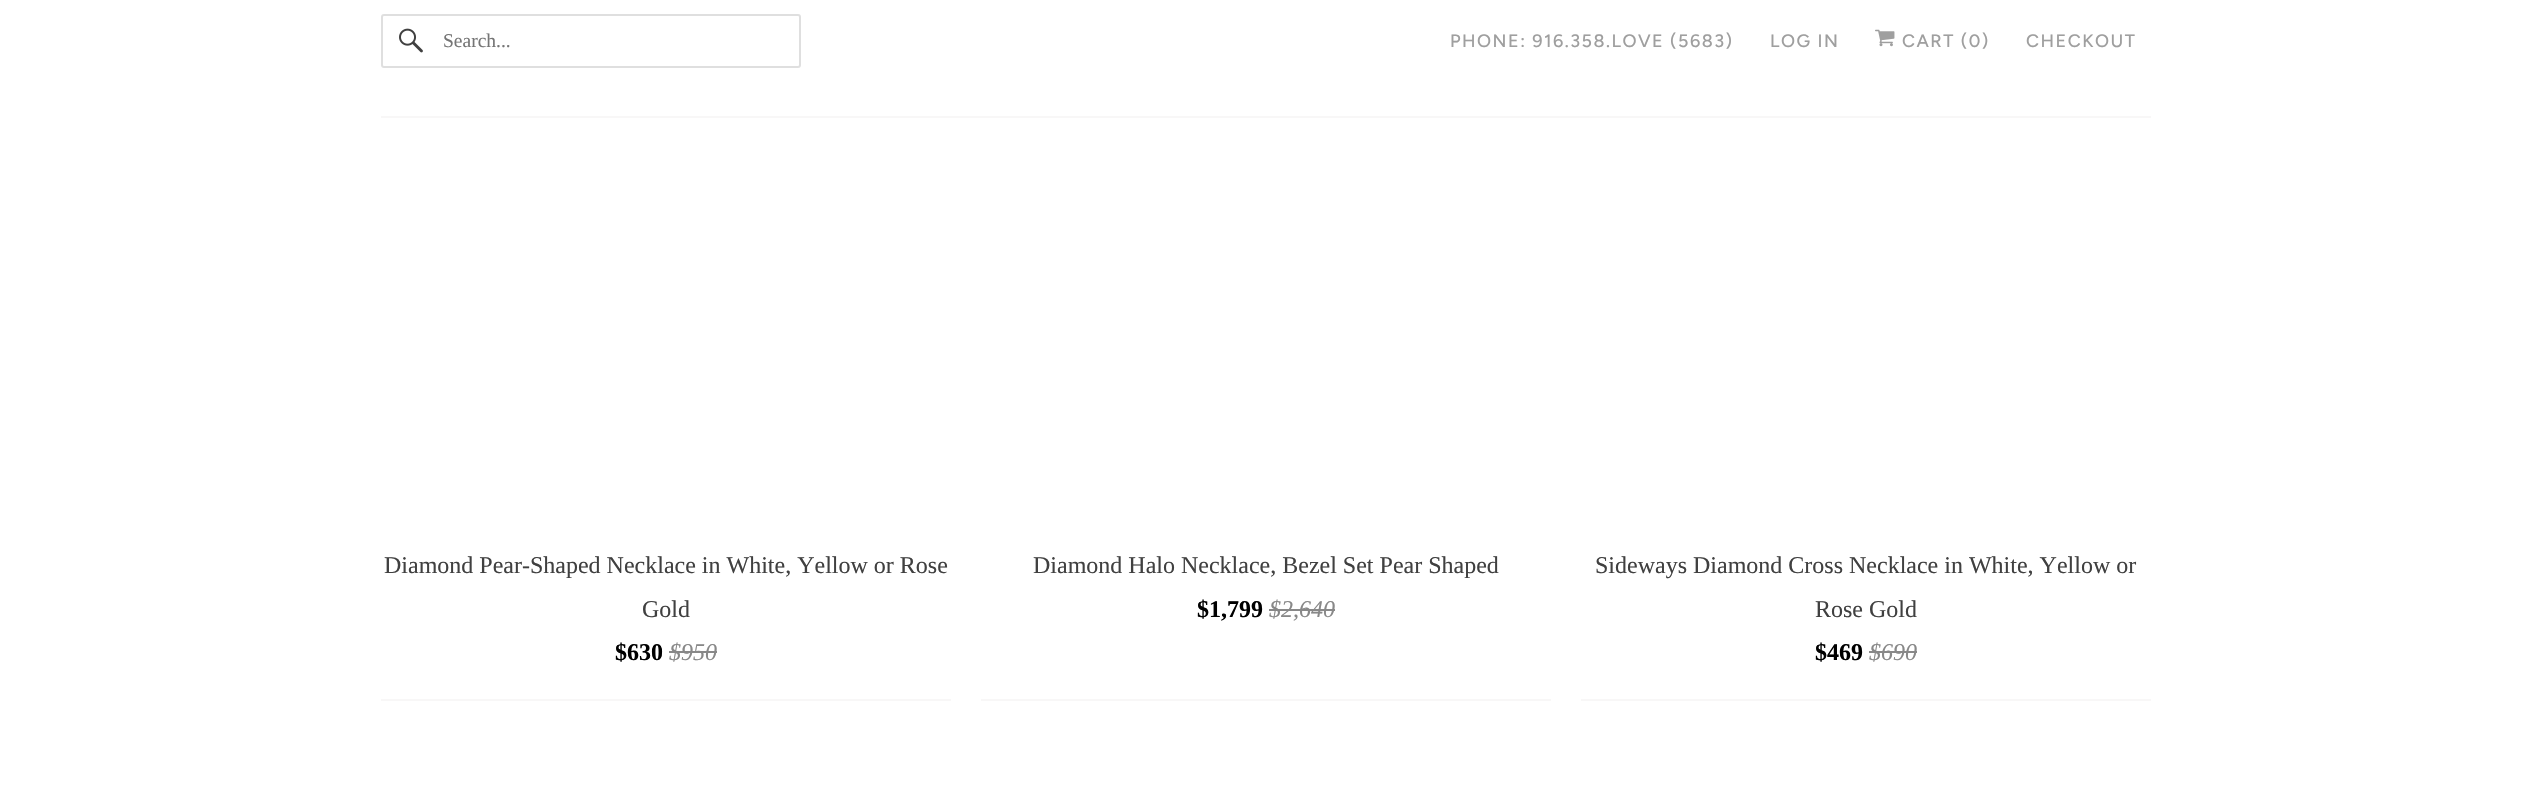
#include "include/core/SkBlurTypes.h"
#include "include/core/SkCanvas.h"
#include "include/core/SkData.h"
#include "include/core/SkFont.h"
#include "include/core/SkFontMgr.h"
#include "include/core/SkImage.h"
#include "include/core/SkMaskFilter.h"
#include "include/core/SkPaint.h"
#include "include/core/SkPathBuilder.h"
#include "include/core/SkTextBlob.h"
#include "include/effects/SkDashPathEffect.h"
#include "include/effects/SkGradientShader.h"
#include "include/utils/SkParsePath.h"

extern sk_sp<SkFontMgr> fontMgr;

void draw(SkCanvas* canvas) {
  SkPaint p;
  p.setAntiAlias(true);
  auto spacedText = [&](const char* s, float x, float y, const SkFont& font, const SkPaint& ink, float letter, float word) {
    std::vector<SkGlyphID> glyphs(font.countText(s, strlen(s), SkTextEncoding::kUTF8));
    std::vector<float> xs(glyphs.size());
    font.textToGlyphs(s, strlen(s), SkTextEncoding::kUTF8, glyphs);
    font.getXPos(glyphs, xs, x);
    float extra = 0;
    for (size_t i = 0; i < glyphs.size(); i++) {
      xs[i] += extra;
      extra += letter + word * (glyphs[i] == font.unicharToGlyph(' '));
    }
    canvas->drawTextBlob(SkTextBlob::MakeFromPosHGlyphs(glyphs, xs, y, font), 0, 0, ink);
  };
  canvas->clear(SK_ColorWHITE);
  p.setStyle(SkPaint::kStroke_Style);
  p.setStrokeWidth(2);
  p.setColor(SkColorSetRGB(223, 223, 223));
  canvas->drawRoundRect(SkRect::MakeLTRB(382, 15, 800, 67), 2, 2, p);
  canvas->drawImageRect(SkImages::DeferredFromEncodedData(SkData::MakeFromFileName("images/1.png")), SkRect::MakeLTRB(399, 28, 423, 53), SkSamplingOptions());
  canvas->drawImageRect(SkImages::DeferredFromEncodedData(SkData::MakeFromFileName("images/2.png")), SkRect::MakeLTRB(1875, 29, 1895, 47), SkSamplingOptions());
  p.setStyle(SkPaint::kFill_Style);
  p.setColor(SkColorSetRGB(248, 247, 247));
  canvas->drawRect(SkRect::MakeLTRB(381, 116, 2151, 118), p);
  canvas->drawRect(SkRect::MakeLTRB(381, 699, 951, 701), p);
  p.setColor(SkColorSetRGB(136, 136, 136));
  canvas->drawRect(SkRect::MakeLTRB(669, 651, 717, 653), p);
  p.setColor(SkColorSetRGB(248, 247, 247));
  canvas->drawRect(SkRect::MakeLTRB(981, 699, 1551, 701), p);
  p.setColor(SkColorSetRGB(136, 136, 136));
  canvas->drawRect(SkRect::MakeLTRB(1269, 609, 1335, 611), p);
  p.setColor(SkColorSetRGB(248, 247, 247));
  canvas->drawRect(SkRect::MakeLTRB(1581, 699, 2151, 701), p);
  p.setColor(SkColorSetRGB(136, 136, 136));
  canvas->drawRect(SkRect::MakeLTRB(1869, 651, 1917, 653), p);
  SkFont font1(fontMgr->matchFamilyStyle("Liberation Serif", SkFontStyle::Normal()), 19.5f);
  font1.setSubpixel(true);
  p.setColor(SkColorSetRGB(117, 117, 117));
  canvas->drawString("Search...", 443, 47, font1, p);
  SkFont font2(fontMgr->matchFamilyStyle("Figtree", SkFontStyle(500, SkFontStyle::kNormal_Width, SkFontStyle::kUpright_Slant)), 18);
  font2.setSubpixel(true);
  p.setColor(SkColorSetRGB(159, 159, 159));
  spacedText("PHONE: 916.358.LOVE (5683)", 1450, 47, font2, p, 1.5f, 0);
  spacedText("LOG IN", 1770, 47, font2, p, 1.5f, 0);
  spacedText("CART (0)", 1902, 47, font2, p, 1.5f, 0);
  spacedText("CHECKOUT", 2026, 47, font2, p, 1.5f, 0);
  SkFont font3(fontMgr->matchFamilyStyle("Liberation Serif", SkFontStyle::Normal()), 24);
  font3.setSubpixel(true);
  p.setColor(SkColorSetRGB(64, 64, 64));
  canvas->drawString("Diamond Pear-Shaped Necklace in White, Yellow or Rose", 384, 573, font3, p);
  canvas->drawString("Gold", 642, 617, font3, p);
  SkFont font4(fontMgr->matchFamilyStyle("Liberation Serif", SkFontStyle::Bold()), 24);
  font4.setSubpixel(true);
  p.setColor(SK_ColorBLACK);
  canvas->drawString("$630", 615, 660, font4, p);
  SkFont font5(fontMgr->matchFamilyStyle("Liberation Serif", SkFontStyle::Italic()), 24);
  font5.setSubpixel(true);
  p.setColor(SkColorSetRGB(136, 136, 136));
  canvas->drawString("$950", 669, 660, font5, p);
  p.setColor(SkColorSetRGB(64, 64, 64));
  canvas->drawString("Diamond Halo Necklace, Bezel Set Pear Shaped", 1033, 573, font3, p);
  p.setColor(SK_ColorBLACK);
  canvas->drawString("$1,799", 1197, 617, font4, p);
  p.setColor(SkColorSetRGB(136, 136, 136));
  canvas->drawString("$2,640", 1269, 617, font5, p);
  p.setColor(SkColorSetRGB(64, 64, 64));
  canvas->drawString("Sideways Diamond Cross Necklace in White, Yellow or", 1595, 573, font3, p);
  canvas->drawString("Rose Gold", 1815, 617, font3, p);
  p.setColor(SK_ColorBLACK);
  canvas->drawString("$469", 1815, 660, font4, p);
  p.setColor(SkColorSetRGB(136, 136, 136));
  canvas->drawString("$690", 1869, 660, font5, p);
}
